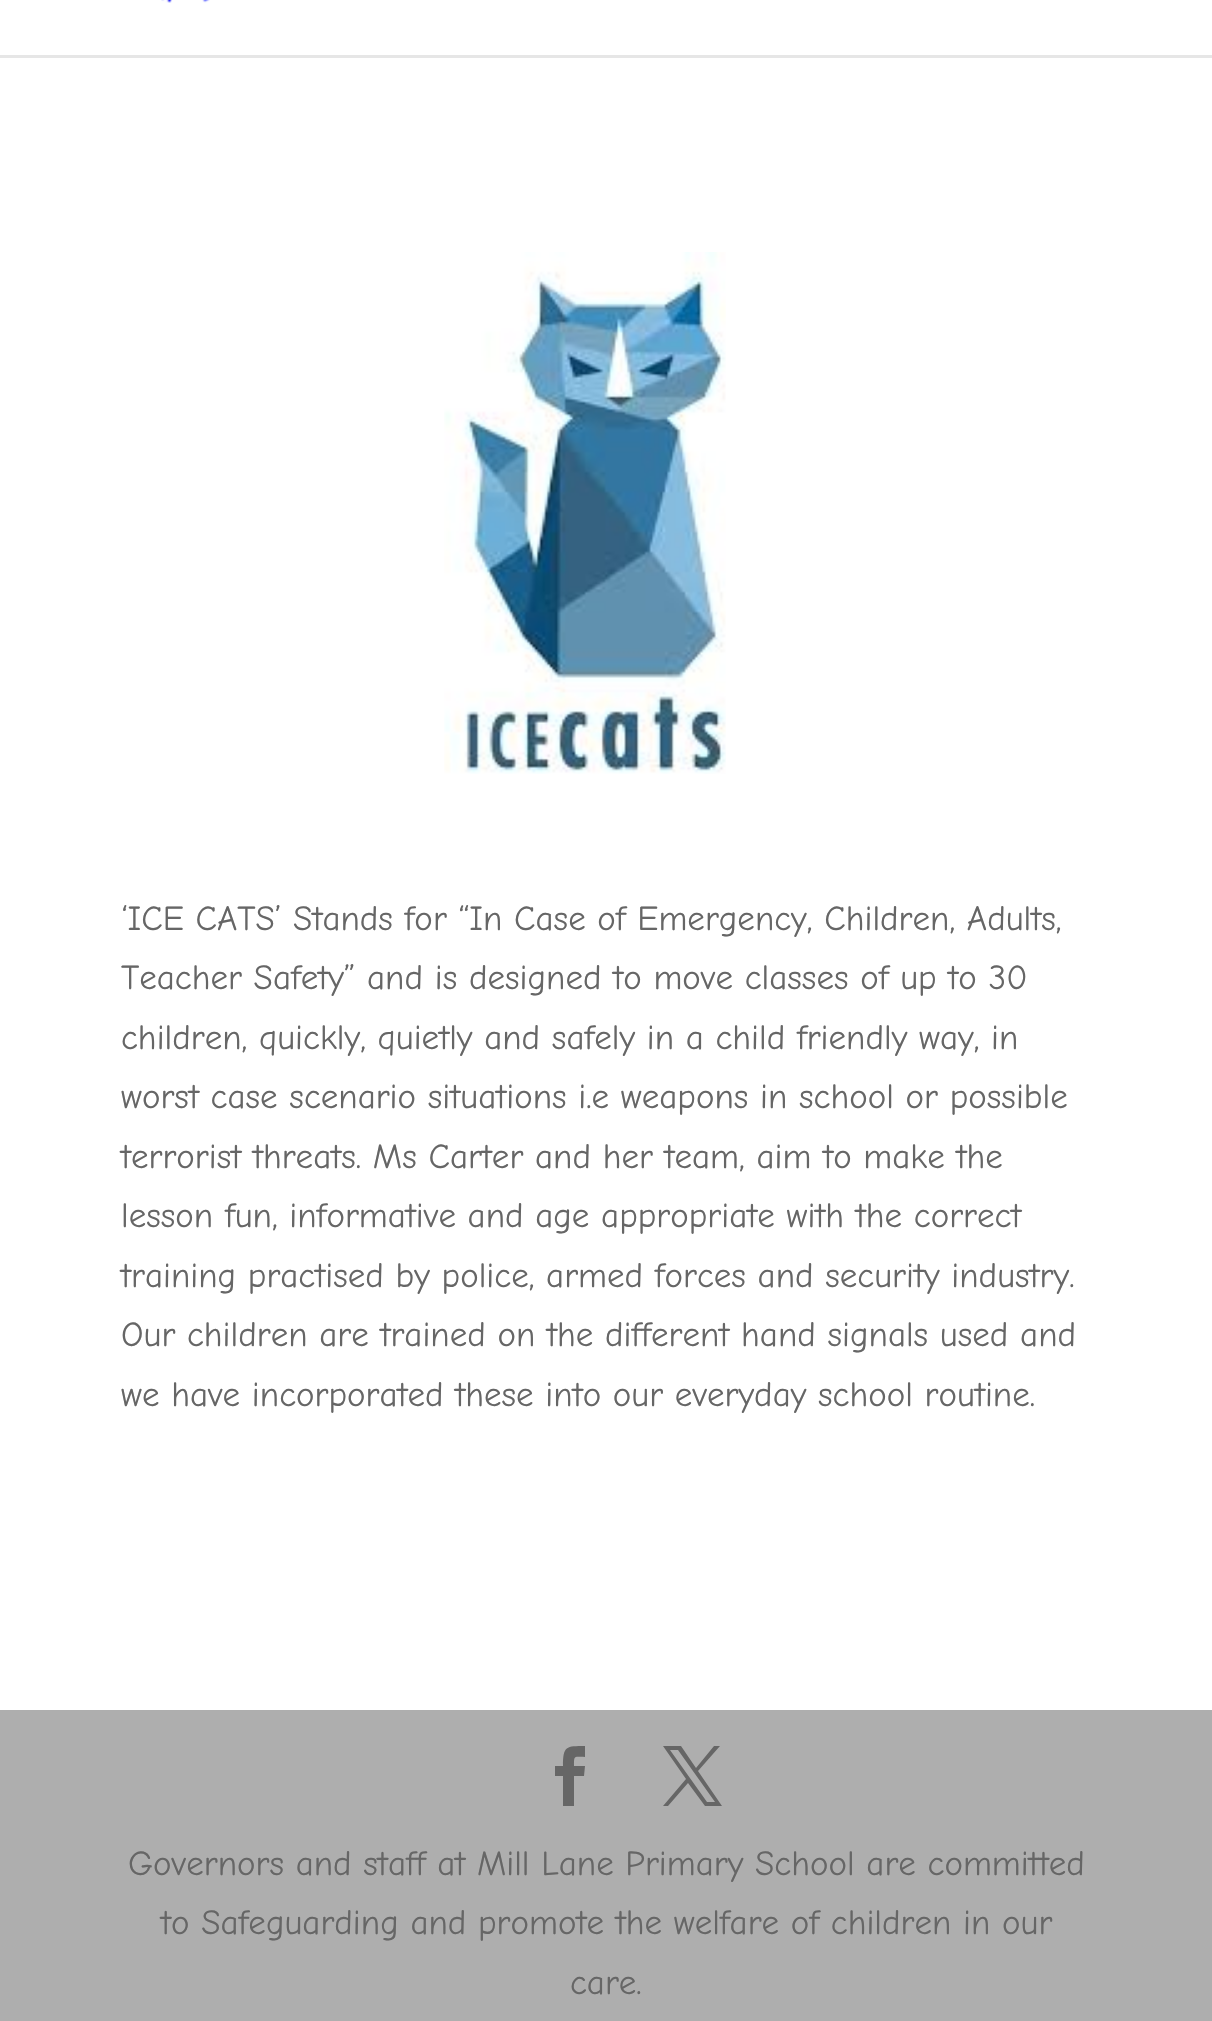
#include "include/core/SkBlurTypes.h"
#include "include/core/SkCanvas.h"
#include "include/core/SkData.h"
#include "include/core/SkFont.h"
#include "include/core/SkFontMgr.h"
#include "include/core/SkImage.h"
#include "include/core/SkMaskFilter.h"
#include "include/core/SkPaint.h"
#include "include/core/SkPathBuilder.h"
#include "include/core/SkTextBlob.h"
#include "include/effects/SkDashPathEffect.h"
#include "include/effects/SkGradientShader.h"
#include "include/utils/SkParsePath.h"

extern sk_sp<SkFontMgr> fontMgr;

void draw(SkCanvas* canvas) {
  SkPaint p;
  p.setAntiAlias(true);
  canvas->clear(SK_ColorWHITE);
  p.setColor(SkColorSetRGB(230, 230, 230));
  canvas->drawPath(SkPathBuilder().moveTo(0, 55).lineTo(0, 58).lineTo(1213, 58).lineTo(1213, -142).lineTo(1212, -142).lineTo(1212, 55).close().detach(), p);
  canvas->drawImageRect(SkImages::DeferredFromEncodedData(SkData::MakeFromFileName("images/1.png")), SkRect::MakeLTRB(161, 0, 210, 3), SkSamplingOptions());
  canvas->drawImageRect(SkImages::DeferredFromEncodedData(SkData::MakeFromFileName("images/2.png")), SkRect::MakeLTRB(444, 252, 726, 774), SkSamplingOptions());
  p.setColor(SkColorSetRGB(174, 174, 174));
  canvas->drawRect(SkRect::MakeLTRB(0, 1710, 1212, 2021), p);
  p.setColor(SkColorSetRGB(102, 102, 102));
  canvas->drawPath(SkPathBuilder().moveTo(563, 1806).lineTo(574, 1806).lineTo(574, 1776).lineTo(584, 1776).lineTo(585, 1766).lineTo(574, 1766).cubicTo(574, 1755, 574, 1757, 585, 1757).lineTo(585, 1746).cubicTo(566, 1746, 563, 1746, 563, 1766).lineTo(555, 1766).lineTo(555, 1776).lineTo(563, 1776).close().detach(), p);
  canvas->drawPath(SkPathBuilder().moveTo(663, 1746).lineTo(686, 1779).lineTo(663, 1806).lineTo(668, 1806).lineTo(688, 1783).lineTo(705, 1806).lineTo(722, 1806).lineTo(698, 1771).lineTo(720, 1746).lineTo(714, 1746).lineTo(696, 1768).lineTo(681, 1746).close().moveTo(670, 1750).lineTo(678, 1750).lineTo(715, 1802).lineTo(707, 1802).close().detach(), p);
  SkFont font1(fontMgr->matchFamilyStyle("Comic Neue", SkFontStyle::Normal()), 35);
  font1.setSubpixel(true);
  canvas->drawString("‘ICE CATS’ Stands for “In Case of Emergency, Children, Adults,", 121, 930, font1, p);
  canvas->drawString("Teacher Safety” and is designed to move classes of up to 30", 121, 989, font1, p);
  canvas->drawString("children, quickly, quietly and safely in a child friendly way, in", 121, 1049, font1, p);
  canvas->drawString("worst case scenario situations i.e weapons in school or possible", 121, 1108, font1, p);
  canvas->drawString("terrorist threats. Ms Carter and her team, aim to make the", 121, 1168, font1, p);
  canvas->drawString("lesson fun, informative and age appropriate with the correct", 121, 1227, font1, p);
  canvas->drawString("training practised by police, armed forces and security industry.", 121, 1287, font1, p);
  canvas->drawString("Our children are trained on the different hand signals used and", 121, 1346, font1, p);
  canvas->drawString("we have incorporated these into our everyday school routine.", 121, 1406, font1, p);
  canvas->drawString("Governors and staff at Mill Lane Primary School are committed", 128, 1875, font1, p);
  canvas->drawString("to Safeguarding and promote the welfare of children in our", 161, 1934, font1, p);
  canvas->drawString("care.", 570, 1994, font1, p);
}
